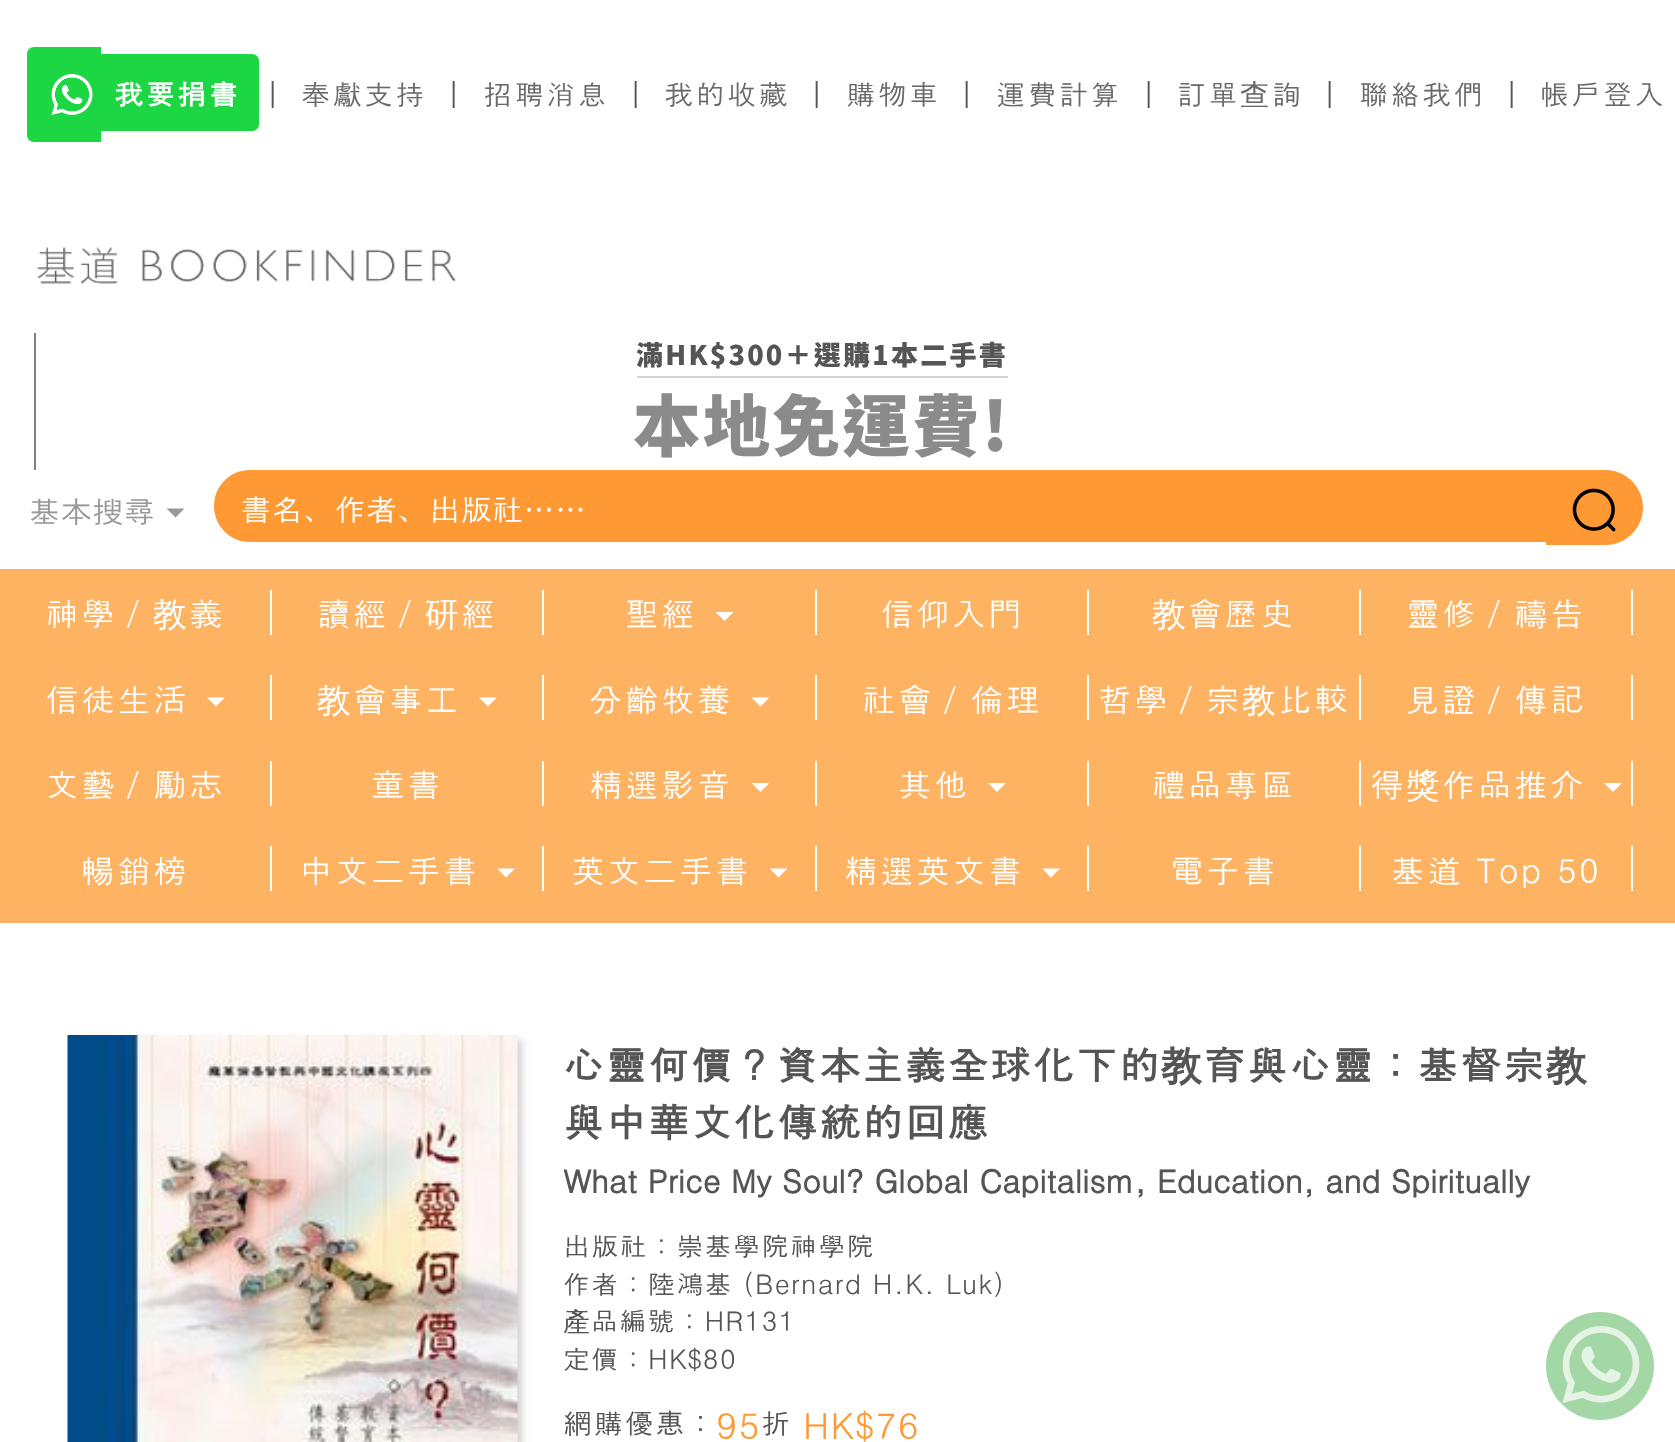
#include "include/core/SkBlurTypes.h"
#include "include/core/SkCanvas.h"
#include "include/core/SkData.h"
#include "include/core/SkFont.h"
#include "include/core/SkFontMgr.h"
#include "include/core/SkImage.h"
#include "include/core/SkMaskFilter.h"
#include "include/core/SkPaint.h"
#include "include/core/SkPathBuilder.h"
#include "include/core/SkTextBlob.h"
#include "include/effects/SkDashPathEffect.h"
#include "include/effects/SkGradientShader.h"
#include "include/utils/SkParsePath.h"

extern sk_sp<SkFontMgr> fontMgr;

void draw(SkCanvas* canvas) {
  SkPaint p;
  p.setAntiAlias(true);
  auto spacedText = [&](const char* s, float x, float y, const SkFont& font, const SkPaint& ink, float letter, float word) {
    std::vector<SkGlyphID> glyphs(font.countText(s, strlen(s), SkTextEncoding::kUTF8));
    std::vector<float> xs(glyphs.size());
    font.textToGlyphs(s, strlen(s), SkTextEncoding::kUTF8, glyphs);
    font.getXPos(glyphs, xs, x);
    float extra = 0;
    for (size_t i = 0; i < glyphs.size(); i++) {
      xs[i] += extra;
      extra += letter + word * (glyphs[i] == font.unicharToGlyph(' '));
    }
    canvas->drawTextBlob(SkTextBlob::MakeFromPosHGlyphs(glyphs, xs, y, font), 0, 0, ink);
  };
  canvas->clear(SK_ColorWHITE);
  p.setColor(SkColorSetRGB(28, 215, 67));
  canvas->drawPath(SkPathBuilder().moveTo(34, 47).lineTo(101, 47).lineTo(101, 142).lineTo(34, 142).cubicTo(30, 142, 27, 139, 27, 135).lineTo(27, 54).cubicTo(27, 50, 30, 47, 34, 47).close().detach(), p);
  canvas->drawImageRect(SkImages::DeferredFromEncodedData(SkData::MakeFromFileName("images/1.png")), SkRect::MakeLTRB(51, 73, 93, 116), SkSamplingOptions());
  canvas->drawPath(SkPathBuilder().moveTo(101, 54).lineTo(252, 54).cubicTo(256, 54, 259, 57, 259, 61).lineTo(259, 124).cubicTo(259, 128, 256, 131, 252, 131).lineTo(101, 131).close().detach(), p);
  canvas->drawImageRect(SkImages::DeferredFromEncodedData(SkData::MakeFromFileName("images/2.png")), SkRect::MakeLTRB(37, 247, 456, 284), SkSamplingOptions());
  p.setColor(SkColorSetRGB(128, 128, 128));
  canvas->drawRect(SkRect::MakeLTRB(34, 333, 36, 470), p);
  p.setColor(SkColorSetRGB(211, 211, 211));
  canvas->drawRect(SkRect::MakeLTRB(637, 376, 1008, 378), p);
  p.setColor(SkColorSetRGB(153, 153, 153));
  canvas->drawPath(SkPathBuilder().moveTo(166.5f, 508.5f).lineTo(184.5f, 508.5f).lineTo(175.5f, 517.5f).close().detach(), p);
  p.setColor(SkColorSetRGB(255, 153, 51));
  canvas->drawPath(SkPathBuilder().moveTo(250, 470).lineTo(1546, 470).lineTo(1546, 542).lineTo(250, 542).cubicTo(230, 542, 214, 526, 214, 506).cubicTo(214, 486, 230, 470, 250, 470).close().detach(), p);
  canvas->drawPath(SkPathBuilder().moveTo(1546, 470).lineTo(1605.5f, 470).cubicTo(1626, 470, 1643, 487, 1643, 507.5f).cubicTo(1643, 528, 1626, 545, 1605.5f, 545).lineTo(1546, 545).close().detach(), p);
  canvas->drawImageRect(SkImages::DeferredFromEncodedData(SkData::MakeFromFileName("images/3.png")), SkRect::MakeLTRB(1572, 488, 1616, 532), SkSamplingOptions());
  p.setColor(SkColorSetRGB(254, 179, 99));
  canvas->drawRect(SkRect::MakeLTRB(0, 569, 1675, 923), p);
  p.setColor(SK_ColorWHITE);
  canvas->drawRect(SkRect::MakeLTRB(270, 590, 272, 635), p);
  canvas->drawRect(SkRect::MakeLTRB(542, 590, 544, 635), p);
  canvas->drawRect(SkRect::MakeLTRB(815, 590, 817, 635), p);
  canvas->drawPath(SkPathBuilder().moveTo(715.5f, 612).lineTo(733.5f, 612).lineTo(724.5f, 621).close().detach(), p);
  canvas->drawRect(SkRect::MakeLTRB(1087, 590, 1089, 635), p);
  canvas->drawRect(SkRect::MakeLTRB(1359, 590, 1361, 635), p);
  canvas->drawRect(SkRect::MakeLTRB(1631, 590, 1633, 635), p);
  canvas->drawRect(SkRect::MakeLTRB(270, 675, 272, 720), p);
  canvas->drawPath(SkPathBuilder().moveTo(207, 697.5f).lineTo(225, 697.5f).lineTo(216, 706.5f).close().detach(), p);
  canvas->drawRect(SkRect::MakeLTRB(542, 675, 544, 720), p);
  canvas->drawPath(SkPathBuilder().moveTo(479, 697.5f).lineTo(497, 697.5f).lineTo(488, 706.5f).close().detach(), p);
  canvas->drawRect(SkRect::MakeLTRB(815, 675, 817, 720), p);
  canvas->drawPath(SkPathBuilder().moveTo(751.5f, 697.5f).lineTo(769.5f, 697.5f).lineTo(760.5f, 706.5f).close().detach(), p);
  canvas->drawRect(SkRect::MakeLTRB(1087, 675, 1089, 720), p);
  canvas->drawRect(SkRect::MakeLTRB(1359, 675, 1361, 720), p);
  canvas->drawRect(SkRect::MakeLTRB(1631, 675, 1633, 720), p);
  canvas->drawRect(SkRect::MakeLTRB(270, 761, 272, 806), p);
  canvas->drawRect(SkRect::MakeLTRB(542, 761, 544, 806), p);
  canvas->drawRect(SkRect::MakeLTRB(815, 761, 817, 806), p);
  canvas->drawPath(SkPathBuilder().moveTo(751.5f, 783).lineTo(769.5f, 783).lineTo(760.5f, 792).close().detach(), p);
  canvas->drawRect(SkRect::MakeLTRB(1087, 761, 1089, 806), p);
  canvas->drawPath(SkPathBuilder().moveTo(988, 783).lineTo(1006, 783).lineTo(997, 792).close().detach(), p);
  canvas->drawRect(SkRect::MakeLTRB(1359, 761, 1361, 806), p);
  canvas->drawRect(SkRect::MakeLTRB(1631, 761, 1633, 806), p);
  canvas->drawPath(SkPathBuilder().moveTo(1604, 783).lineTo(1622, 783).lineTo(1613, 792).close().detach(), p);
  canvas->drawRect(SkRect::MakeLTRB(270, 846, 272, 891), p);
  canvas->drawRect(SkRect::MakeLTRB(542, 846, 544, 891), p);
  canvas->drawPath(SkPathBuilder().moveTo(497, 868.5f).lineTo(515, 868.5f).lineTo(506, 877.5f).close().detach(), p);
  canvas->drawRect(SkRect::MakeLTRB(815, 846, 817, 891), p);
  canvas->drawPath(SkPathBuilder().moveTo(769.5f, 868.5f).lineTo(787.5f, 868.5f).lineTo(778.5f, 877.5f).close().detach(), p);
  canvas->drawRect(SkRect::MakeLTRB(1087, 846, 1089, 891), p);
  canvas->drawPath(SkPathBuilder().moveTo(1042, 868.5f).lineTo(1060, 868.5f).lineTo(1051, 877.5f).close().detach(), p);
  canvas->drawRect(SkRect::MakeLTRB(1359, 846, 1361, 891), p);
  canvas->drawRect(SkRect::MakeLTRB(1631, 846, 1633, 891), p);
  p.setColor(SkColorSetRGB(211, 211, 211));
  p.setMaskFilter(SkMaskFilter::MakeBlur(kNormal_SkBlurStyle, 3.5f));
  canvas->drawRect(SkRect::MakeLTRB(72, 1040, 522, 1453), p);
  p.setMaskFilter(nullptr);
  canvas->drawImageRect(SkImages::DeferredFromEncodedData(SkData::MakeFromFileName("images/4.png")), SkRect::MakeLTRB(67, 1035, 518, 1442), SkSamplingOptions());
  p.setColor(SkColorSetRGB(163, 215, 165));
  canvas->drawCircle(1600, 1366, 54, p);
  canvas->drawImageRect(SkImages::DeferredFromEncodedData(SkData::MakeFromFileName("images/5.png")), SkRect::MakeLTRB(1562, 1326, 1640, 1403), SkSamplingOptions());
  SkFont font1(fontMgr->matchFamilyStyle("Dotum", SkFontStyle::Bold()), 29.25f);
  font1.setSubpixel(true);
  p.setColor(SK_ColorWHITE);
  spacedText("我要捐書", 114, 105, font1, p, 2.25f, 0);
  SkFont font2(fontMgr->matchFamilyStyle("Dotum", SkFontStyle::Normal()), 29.25f);
  font2.setSubpixel(true);
  p.setColor(SkColorSetRGB(85, 85, 85));
  spacedText("｜", 258, 105, font2, p, 2.25f, 0);
  p.setColor(SkColorSetRGB(105, 105, 105));
  spacedText("奉獻支持", 301, 105, font2, p, 2.25f, 0);
  p.setColor(SkColorSetRGB(85, 85, 85));
  spacedText("｜", 439, 105, font2, p, 2.25f, 0);
  p.setColor(SkColorSetRGB(105, 105, 105));
  spacedText("招聘消息", 483, 105, font2, p, 2.25f, 0);
  p.setColor(SkColorSetRGB(85, 85, 85));
  spacedText("｜", 621, 105, font2, p, 2.25f, 0);
  p.setColor(SkColorSetRGB(105, 105, 105));
  spacedText("我的收藏", 664, 105, font2, p, 2.25f, 0);
  p.setColor(SkColorSetRGB(85, 85, 85));
  spacedText("｜", 802, 105, font2, p, 2.25f, 0);
  p.setColor(SkColorSetRGB(105, 105, 105));
  spacedText("購物車", 846, 105, font2, p, 2.25f, 0);
  p.setColor(SkColorSetRGB(85, 85, 85));
  spacedText("｜", 952, 105, font2, p, 2.25f, 0);
  p.setColor(SkColorSetRGB(105, 105, 105));
  spacedText("運費計算", 996, 105, font2, p, 2.25f, 0);
  p.setColor(SkColorSetRGB(85, 85, 85));
  spacedText("｜", 1134, 105, font2, p, 2.25f, 0);
  p.setColor(SkColorSetRGB(105, 105, 105));
  spacedText("訂單", 1177, 105, font2, p, 2.25f, 0);
  SkFont font3(fontMgr->matchFamilyStyle("WenQuanYi Zen Hei", SkFontStyle(500, SkFontStyle::kNormal_Width, SkFontStyle::kUpright_Slant)), 29.25f);
  font3.setSubpixel(true);
  spacedText("查", 1240, 105, font3, p, 2.25f, 0);
  spacedText("詢", 1272, 105, font2, p, 2.25f, 0);
  p.setColor(SkColorSetRGB(85, 85, 85));
  spacedText("｜", 1315, 105, font2, p, 2.25f, 0);
  p.setColor(SkColorSetRGB(105, 105, 105));
  spacedText("聯絡我們", 1359, 105, font2, p, 2.25f, 0);
  p.setColor(SkColorSetRGB(85, 85, 85));
  spacedText("｜", 1497, 105, font2, p, 2.25f, 0);
  p.setColor(SkColorSetRGB(105, 105, 105));
  spacedText("帳戶登入", 1540, 105, font2, p, 2.25f, 0);
  SkFont font4(fontMgr->matchFamilyStyle("Noto Sans TC", SkFontStyle(900, SkFontStyle::kNormal_Width, SkFontStyle::kUpright_Slant)), 27);
  font4.setSubpixel(true);
  p.setColor(SkColorSetRGB(85, 85, 85));
  spacedText("滿HK$300＋選購1本二手書", 636, 365, font4, p, 2.25f, 0);
  SkFont font5(fontMgr->matchFamilyStyle("Noto Sans TC", SkFontStyle(900, SkFontStyle::kNormal_Width, SkFontStyle::kUpright_Slant)), 67.5f);
  font5.setSubpixel(true);
  p.setColor(SkColorSetRGB(139, 139, 139));
  spacedText("本地免運費!", 633, 451, font5, p, 2.25f, 0);
  SkFont font6(fontMgr->matchFamilyStyle("Dotum", SkFontStyle::Normal()), 31.5f);
  font6.setSubpixel(true);
  p.setColor(SkColorSetRGB(153, 153, 153));
  canvas->drawString("基本搜尋", 29, 523, font6, p);
  p.setColor(SK_ColorWHITE);
  canvas->drawString("書名、作者、出版社……", 240, 521, font6, p);
  SkFont font7(fontMgr->matchFamilyStyle("Dotum", SkFontStyle::Normal()), 33.75f);
  font7.setSubpixel(true);
  spacedText("神學／", 45, 626, font7, p, 2.25f, 0);
  SkFont font8(fontMgr->matchFamilyStyle("WenQuanYi Zen Hei", SkFontStyle(500, SkFontStyle::kNormal_Width, SkFontStyle::kUpright_Slant)), 33.75f);
  font8.setSubpixel(true);
  spacedText("教", 153, 626, font8, p, 2.25f, 0);
  spacedText("義", 189, 626, font7, p, 2.25f, 0);
  spacedText("讀經／", 317, 626, font7, p, 2.25f, 0);
  spacedText("研", 425, 626, font8, p, 2.25f, 0);
  spacedText("經", 461, 626, font7, p, 2.25f, 0);
  spacedText("聖經", 625, 626, font7, p, 2.25f, 0);
  spacedText("信仰入門", 880, 626, font7, p, 2.25f, 0);
  spacedText("教", 1152, 626, font8, p, 2.25f, 0);
  spacedText("會歷史", 1188, 626, font7, p, 2.25f, 0);
  spacedText("靈修／禱告", 1406, 626, font7, p, 2.25f, 0);
  spacedText("信徒生活", 45, 712, font7, p, 2.25f, 0);
  spacedText("教", 317, 712, font8, p, 2.25f, 0);
  spacedText("會事工", 353, 712, font7, p, 2.25f, 0);
  spacedText("分齡牧養", 589, 712, font7, p, 2.25f, 0);
  spacedText("社會／倫理", 862, 712, font7, p, 2.25f, 0);
  spacedText("哲學／宗", 1098, 712, font7, p, 2.25f, 0);
  spacedText("教", 1242, 712, font8, p, 2.25f, 0);
  spacedText("比較", 1278, 712, font7, p, 2.25f, 0);
  spacedText("見證／傳記", 1406, 712, font7, p, 2.25f, 0);
  spacedText("文藝／勵志", 45, 797, font7, p, 2.25f, 0);
  spacedText("童書", 371, 797, font7, p, 2.25f, 0);
  spacedText("精選影音", 589, 797, font7, p, 2.25f, 0);
  spacedText("其他", 898, 797, font7, p, 2.25f, 0);
  spacedText("禮品專區", 1152, 797, font7, p, 2.25f, 0);
  spacedText("得", 1370, 797, font7, p, 2.25f, 0);
  spacedText("獎", 1406, 797, font8, p, 2.25f, 0);
  spacedText("作品推介", 1442, 797, font7, p, 2.25f, 0);
  spacedText("暢銷榜", 81, 883, font7, p, 2.25f, 0);
  spacedText("中文二手書", 299, 883, font7, p, 2.25f, 0);
  spacedText("英文二手書", 571, 883, font7, p, 2.25f, 0);
  spacedText("精選英文書", 844, 883, font7, p, 2.25f, 0);
  spacedText("電子書", 1170, 883, font7, p, 2.25f, 0);
  spacedText("基道 Top 50", 1391, 883, font7, p, 2.25f, 0);
  SkFont font9(fontMgr->matchFamilyStyle("Dotum", SkFontStyle::Bold()), 40.5f);
  font9.setSubpixel(true);
  p.setColor(SkColorSetRGB(85, 85, 85));
  spacedText("心靈何價？資本主義全球化下的", 563, 1080, font9, p, 2.25f, 0);
  SkFont font10(fontMgr->matchFamilyStyle("WenQuanYi Zen Hei", SkFontStyle::Bold()), 40.5f);
  font10.setSubpixel(true);
  spacedText("教", 1161, 1080, font10, p, 2.25f, 0);
  spacedText("育與心靈：基督宗", 1204, 1080, font9, p, 2.25f, 0);
  spacedText("教", 1546, 1080, font10, p, 2.25f, 0);
  spacedText("與中華文化傳統的回應", 563, 1137, font9, p, 2.25f, 0);
  SkFont font11(fontMgr->matchFamilyStyle("Dotum", SkFontStyle::Bold()), 31.5f);
  font11.setSubpixel(true);
  canvas->drawString("What Price My Soul? Global Capitalism, Education, and Spiritually", 563, 1193, font11, p);
  SkFont font12(fontMgr->matchFamilyStyle("Dotum", SkFontStyle::Normal()), 27);
  font12.setSubpixel(true);
  spacedText("出版社：崇基學院神學院", 563, 1256, font12, p, 1.35f, 0);
  spacedText("作者：陸鴻基 (Bernard H.K. Luk)", 563, 1294, font12, p, 1.35f, 0);
  SkFont font13(fontMgr->matchFamilyStyle("WenQuanYi Zen Hei", SkFontStyle(500, SkFontStyle::kNormal_Width, SkFontStyle::kUpright_Slant)), 27);
  font13.setSubpixel(true);
  spacedText("產", 563, 1331, font13, p, 1.35f, 0);
  spacedText("品編號：HR131", 591, 1331, font12, p, 1.35f, 0);
  spacedText("定價：HK$80", 563, 1369, font12, p, 1.35f, 0);
  spacedText("網購優惠：", 563, 1434, font2, p, 1.5f, 0);
  SkFont font14(fontMgr->matchFamilyStyle("Dotum", SkFontStyle::Normal()), 36);
  font14.setSubpixel(true);
  p.setColor(SkColorSetRGB(255, 153, 51));
  spacedText("95", 716, 1439, font14, p, 1.5f, 0);
  p.setColor(SkColorSetRGB(85, 85, 85));
  spacedText("折", 761, 1434, font2, p, 1.5f, 0);
  p.setColor(SkColorSetRGB(255, 153, 51));
  spacedText("HK$76", 803, 1439, font14, p, 1.5f, 0);
}
